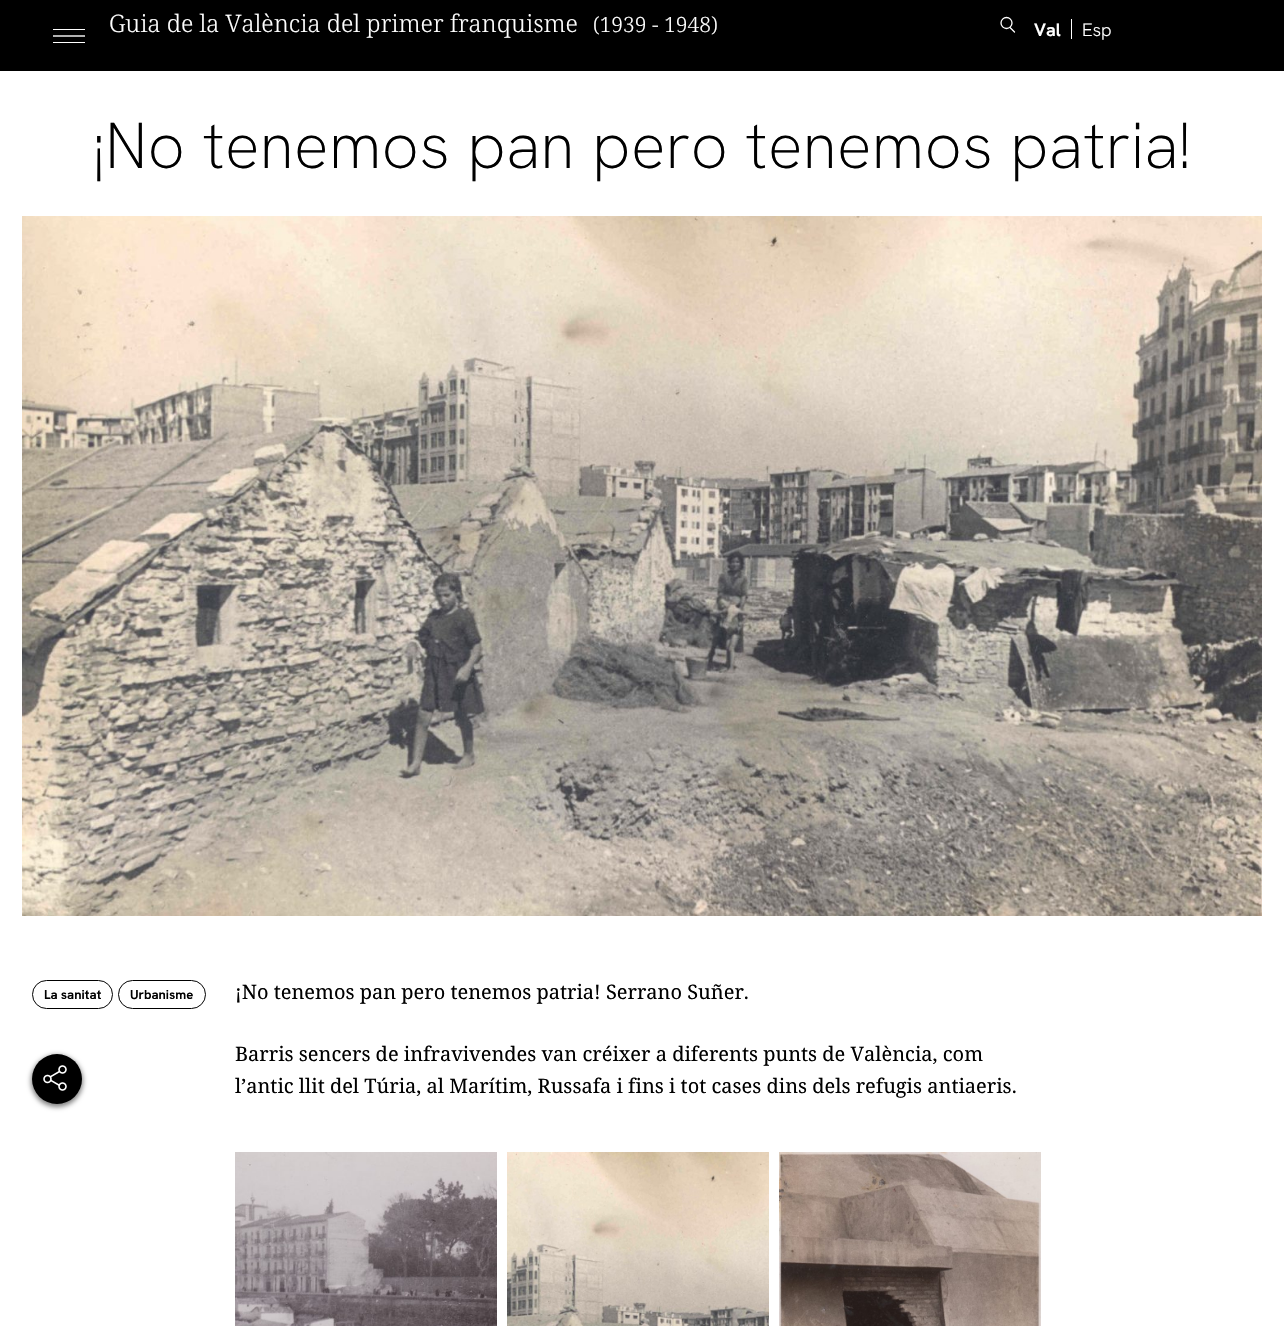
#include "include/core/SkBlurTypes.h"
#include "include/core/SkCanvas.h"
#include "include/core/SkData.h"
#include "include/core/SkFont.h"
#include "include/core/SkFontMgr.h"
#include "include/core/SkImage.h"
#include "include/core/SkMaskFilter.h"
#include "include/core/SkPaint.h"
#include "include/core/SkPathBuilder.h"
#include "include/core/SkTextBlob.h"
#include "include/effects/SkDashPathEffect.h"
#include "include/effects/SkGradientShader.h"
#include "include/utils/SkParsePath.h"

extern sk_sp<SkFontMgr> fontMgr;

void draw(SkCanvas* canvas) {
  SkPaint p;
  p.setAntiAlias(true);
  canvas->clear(SK_ColorWHITE);
  p.setColor(SK_ColorBLACK);
  canvas->drawRect(SkRect::MakeLTRB(0, 0, 1284, 71), p);
  p.setColor(SK_ColorWHITE);
  canvas->drawRect(SkRect::MakeLTRB(53, 29, 85, 30), p);
  p.setStyle(SkPaint::kStroke_Style);
  p.setStrokeWidth(1.4f);
  canvas->drawPath(SkPathBuilder().moveTo(53, 36).lineTo(85, 36).detach(), p);
  p.setStyle(SkPaint::kFill_Style);
  canvas->drawRect(SkRect::MakeLTRB(53, 42, 85, 43), p);
  p.setStyle(SkPaint::kStroke_Style);
  p.setStrokeWidth(1.3f);
  p.setStrokeCap(SkPaint::kRound_Cap);
  p.setStrokeJoin(SkPaint::kRound_Join);
  canvas->drawPath(SkPathBuilder().moveTo(1010, 27.5f).lineTo(1014.5f, 32).detach(), p);
  p.setStrokeCap(SkPaint::kButt_Cap);
  p.setStrokeJoin(SkPaint::kMiter_Join);
  canvas->drawCircle(1006.5f, 23, 5.5f, p);
  p.setStyle(SkPaint::kFill_Style);
  canvas->drawRect(SkRect::MakeLTRB(1071, 19, 1072, 39), p);
  canvas->drawImageRect(SkImages::DeferredFromEncodedData(SkData::MakeFromFileName("images/1.png")), SkRect::MakeLTRB(22, 216, 1262, 916), SkSamplingOptions());
  p.setStyle(SkPaint::kStroke_Style);
  p.setStrokeWidth(1);
  p.setColor(SK_ColorBLACK);
  canvas->drawRoundRect(SkRect::MakeLTRB(32.5f, 980.5f, 112.5f, 1008.5f), 14, 14, p);
  canvas->drawRoundRect(SkRect::MakeLTRB(118.5f, 980.5f, 205.5f, 1008.5f), 14, 14, p);
  p.setStyle(SkPaint::kFill_Style);
  p.setColor(SkColorSetARGB(128, 0, 0, 0));
  p.setMaskFilter(SkMaskFilter::MakeBlur(kNormal_SkBlurStyle, 2.5f));
  canvas->drawRoundRect(SkRect::MakeLTRB(31, 1055, 83, 1107), 26, 26, p);
  p.setMaskFilter(nullptr);
  p.setColor(SK_ColorBLACK);
  canvas->drawCircle(57, 1079, 25, p);
  canvas->drawImageRect(SkImages::DeferredFromEncodedData(SkData::MakeFromFileName("images/2.png")), SkRect::MakeLTRB(43, 1065, 67, 1091), SkSamplingOptions());
  canvas->drawImageRect(SkImages::DeferredFromEncodedData(SkData::MakeFromFileName("images/3.png")), SkRect::MakeLTRB(235, 1152, 497, 1326), SkSamplingOptions());
  canvas->drawImageRect(SkImages::DeferredFromEncodedData(SkData::MakeFromFileName("images/4.png")), SkRect::MakeLTRB(507, 1152, 769, 1326), SkSamplingOptions());
  canvas->drawImageRect(SkImages::DeferredFromEncodedData(SkData::MakeFromFileName("images/5.png")), SkRect::MakeLTRB(779, 1152, 1041, 1326), SkSamplingOptions());
  SkFont font1(fontMgr->matchFamilyStyle("Noto Serif", SkFontStyle(300, SkFontStyle::kNormal_Width, SkFontStyle::kUpright_Slant)), 24);
  font1.setSubpixel(true);
  p.setColor(SK_ColorWHITE);
  canvas->drawString("Guia de la València del primer franquisme", 109, 32, font1, p);
  SkFont font2(fontMgr->matchFamilyStyle("Noto Serif", SkFontStyle(300, SkFontStyle::kNormal_Width, SkFontStyle::kUpright_Slant)), 21);
  font2.setSubpixel(true);
  canvas->drawString("(1939 - 1948)", 593, 32, font2, p);
  SkFont font3(fontMgr->matchFamilyStyle("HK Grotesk", SkFontStyle::Bold()), 18);
  font3.setSubpixel(true);
  canvas->drawString("Val", 1034, 36, font3, p);
  SkFont font4(fontMgr->matchFamilyStyle("HK Grotesk", SkFontStyle::Normal()), 18);
  font4.setSubpixel(true);
  canvas->drawString("Esp", 1082, 36, font4, p);
  SkFont font5(fontMgr->matchFamilyStyle("HK Grotesk", SkFontStyle(300, SkFontStyle::kNormal_Width, SkFontStyle::kUpright_Slant)), 65);
  font5.setSubpixel(true);
  p.setColor(SK_ColorBLACK);
  canvas->drawString("¡No tenemos pan pero tenemos patria!", 93, 168, font5, p);
  SkFont font6(fontMgr->matchFamilyStyle("HK Grotesk", SkFontStyle::Bold()), 13);
  font6.setSubpixel(true);
  canvas->drawString("La sanitat", 44, 999, font6, p);
  canvas->drawString("Urbanisme", 130, 999, font6, p);
  SkFont font7(fontMgr->matchFamilyStyle("Noto Serif", SkFontStyle::Normal()), 20);
  font7.setSubpixel(true);
  canvas->drawString("¡No tenemos pan pero tenemos patria! Serrano Suñer.", 235, 999, font7, p);
  canvas->drawString("Barris sencers de infravivendes van créixer a diferents punts de València, com", 235, 1061, font7, p);
  canvas->drawString("l’antic llit del Túria, al Marítim, Russafa i fins i tot cases dins dels refugis antiaeris.", 235, 1093, font7, p);
}
